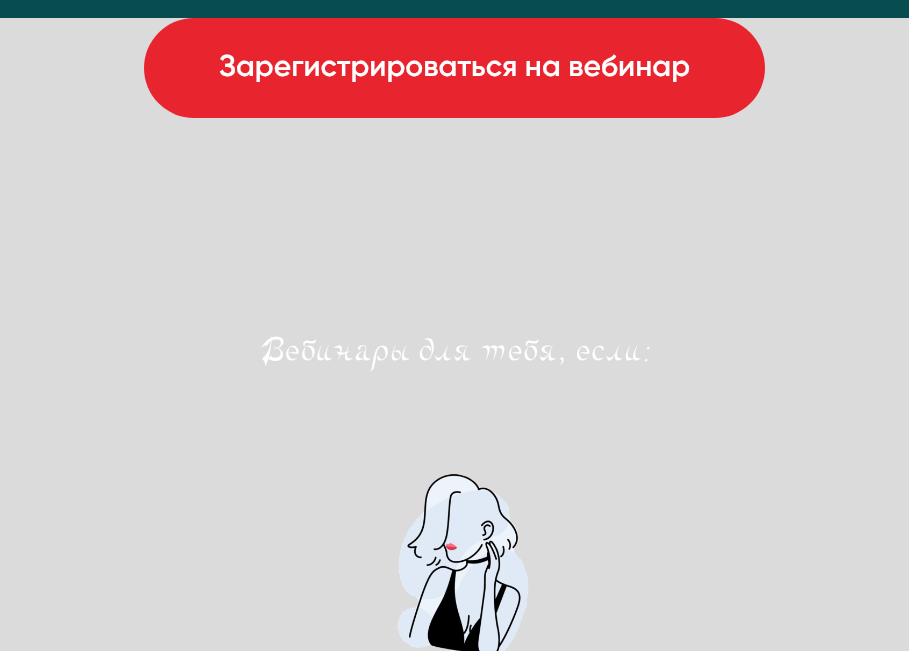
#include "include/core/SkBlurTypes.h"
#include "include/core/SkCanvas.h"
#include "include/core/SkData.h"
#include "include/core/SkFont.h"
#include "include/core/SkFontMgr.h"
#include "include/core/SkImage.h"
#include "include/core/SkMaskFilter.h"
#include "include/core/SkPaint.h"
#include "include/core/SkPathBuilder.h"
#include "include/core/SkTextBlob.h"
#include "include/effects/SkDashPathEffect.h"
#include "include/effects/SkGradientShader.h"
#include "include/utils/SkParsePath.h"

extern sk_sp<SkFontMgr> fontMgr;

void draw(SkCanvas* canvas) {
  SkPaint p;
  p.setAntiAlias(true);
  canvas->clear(SkColorSetRGB(219, 219, 219));
  p.setColor(SkColorSetRGB(7, 77, 79));
  canvas->drawRect(SkRect::MakeLTRB(0, 0, 909, 18), p);
  p.setColor(SkColorSetRGB(232, 37, 46));
  canvas->drawRoundRect(SkRect::MakeLTRB(144, 18, 765, 118), 50, 50, p);
  canvas->drawImageRect(SkImages::DeferredFromEncodedData(SkData::MakeFromFileName("images/1.png")), SkRect::MakeLTRB(397, 474, 529, 651), SkSamplingOptions());
  SkFont font1(fontMgr->matchFamilyStyle("Gilroy", SkFontStyle(600, SkFontStyle::kNormal_Width, SkFontStyle::kUpright_Slant)), 30);
  font1.setSubpixel(true);
  p.setColor(SK_ColorWHITE);
  canvas->drawString("Зарегистрироваться на вебинар", 219, 76, font1, p);
  SkFont font2(fontMgr->matchFamilyStyle("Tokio", SkFontStyle::Normal()), 36);
  font2.setSubpixel(true);
  canvas->drawString("Вебинары для тебя, если:", 258, 360, font2, p);
}
